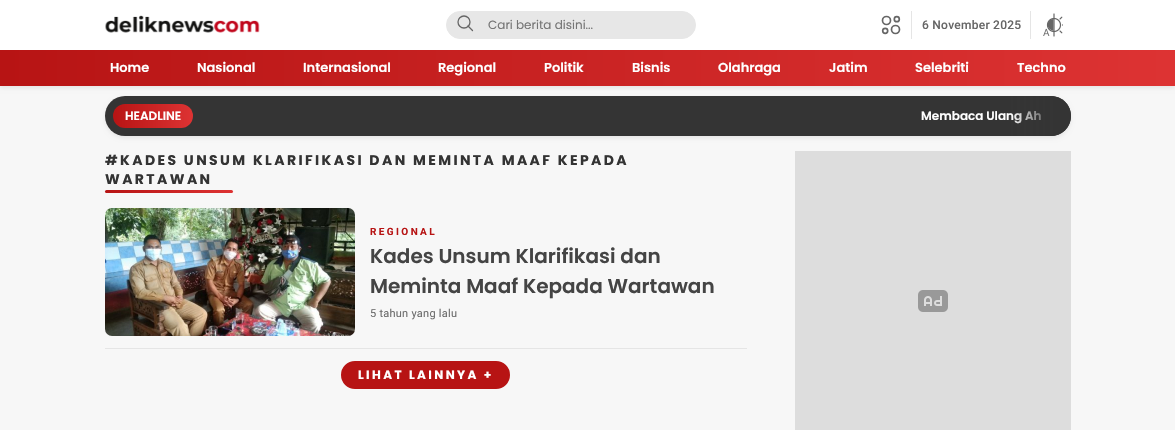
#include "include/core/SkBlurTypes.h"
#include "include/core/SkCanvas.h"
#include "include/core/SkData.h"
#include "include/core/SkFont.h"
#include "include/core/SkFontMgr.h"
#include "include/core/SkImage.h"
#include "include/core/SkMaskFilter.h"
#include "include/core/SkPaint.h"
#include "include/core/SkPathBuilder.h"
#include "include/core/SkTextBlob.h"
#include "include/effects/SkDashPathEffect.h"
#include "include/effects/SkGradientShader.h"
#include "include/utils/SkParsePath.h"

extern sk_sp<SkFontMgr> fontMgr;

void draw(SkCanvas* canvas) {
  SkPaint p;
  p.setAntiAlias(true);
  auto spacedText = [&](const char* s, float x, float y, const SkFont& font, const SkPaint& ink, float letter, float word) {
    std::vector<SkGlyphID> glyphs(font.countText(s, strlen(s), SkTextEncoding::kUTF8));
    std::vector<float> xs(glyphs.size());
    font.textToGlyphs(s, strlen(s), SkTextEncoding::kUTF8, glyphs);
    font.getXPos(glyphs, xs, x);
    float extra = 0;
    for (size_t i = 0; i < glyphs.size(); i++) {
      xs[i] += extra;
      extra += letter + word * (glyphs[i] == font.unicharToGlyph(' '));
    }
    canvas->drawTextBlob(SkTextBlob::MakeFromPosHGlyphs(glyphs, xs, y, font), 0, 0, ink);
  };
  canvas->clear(SkColorSetRGB(247, 247, 247));
  p.setColor(SkColorSetARGB(18, 0, 0, 0));
  p.setMaskFilter(SkMaskFilter::MakeBlur(kNormal_SkBlurStyle, 2));
  canvas->drawRect(SkRect::MakeLTRB(0, 2, 1175, 88), p);
  p.setMaskFilter(nullptr);
  p.setColor(SK_ColorWHITE);
  canvas->drawRect(SkRect::MakeLTRB(0, 0, 1175, 50), p);
  canvas->drawImageRect(SkImages::DeferredFromEncodedData(SkData::MakeFromFileName("images/1.png")), SkRect::MakeLTRB(105, 15, 260, 33), SkSamplingOptions());
  p.setColor(SkColorSetRGB(231, 231, 231));
  canvas->drawRoundRect(SkRect::MakeLTRB(446.5f, 11.5f, 695.5f, 38.5f), 13.5f, 13.5f, p);
  p.setStyle(SkPaint::kStroke_Style);
  p.setStrokeWidth(1);
  canvas->drawRoundRect(SkRect::MakeLTRB(446.5f, 11.5f, 695.5f, 38.5f), 13.5f, 13.5f, p);
  p.setStrokeWidth(1.3f);
  p.setColor(SkColorSetRGB(102, 102, 102));
  canvas->drawCircle(464, 22, 6, p);
  p.setStrokeCap(SkPaint::kRound_Cap);
  p.setStrokeJoin(SkPaint::kRound_Join);
  canvas->drawPath(SkPathBuilder().moveTo(472.5f, 30.5f).lineTo(468, 26).detach(), p);
  p.setStyle(SkPaint::kFill_Style);
  p.setColor(SkColorSetRGB(229, 229, 229));
  canvas->drawRect(SkRect::MakeLTRB(911, 11, 912, 39), p);
  p.setStyle(SkPaint::kStroke_Style);
  p.setStrokeWidth(1.7f);
  p.setStrokeCap(SkPaint::kButt_Cap);
  p.setStrokeJoin(SkPaint::kMiter_Join);
  p.setColor(SkColorSetRGB(102, 102, 102));
  canvas->drawCircle(895.5f, 29.5f, 4, p);
  canvas->drawCircle(886.5f, 20.5f, 4, p);
  canvas->drawCircle(885.2f, 30.8f, 2.5f, p);
  canvas->drawCircle(896.8f, 19.2f, 2.5f, p);
  p.setStyle(SkPaint::kFill_Style);
  p.setColor(SkColorSetRGB(229, 229, 229));
  canvas->drawRect(SkRect::MakeLTRB(1030, 11, 1031, 39), p);
  canvas->drawImageRect(SkImages::DeferredFromEncodedData(SkData::MakeFromFileName("images/2.png")), SkRect::MakeLTRB(1043, 13, 1063, 37), SkSamplingOptions());
  {
    const SkColor colors[] = {SkColorSetRGB(183, 20, 20), SkColorSetRGB(221, 51, 51)};
    const float stops[] = {0, 1};
    const SkPoint ends[] = {{0, 68}, {1175, 68}};
    p.setShader(SkGradientShader::MakeLinear(ends, colors, stops, 2, SkTileMode::kClamp));
    p.setAlpha(255);
  }
  canvas->drawRect(SkRect::MakeLTRB(0, 50, 1175, 86), p);
  p.setShader(nullptr);
  p.setColor(SkColorSetARGB(18, 0, 0, 0));
  p.setMaskFilter(SkMaskFilter::MakeBlur(kNormal_SkBlurStyle, 2));
  canvas->drawRoundRect(SkRect::MakeLTRB(105, 98, 1071, 138), 20, 20, p);
  p.setMaskFilter(nullptr);
  p.setColor(SkColorSetRGB(52, 52, 52));
  canvas->drawRoundRect(SkRect::MakeLTRB(105, 96, 1071, 136), 20, 20, p);
  {
    const SkColor colors[] = {SkColorSetRGB(183, 20, 20), SkColorSetRGB(221, 51, 51)};
    const float stops[] = {0, 1};
    const SkPoint ends[] = {{113, 116}, {193, 116}};
    p.setShader(SkGradientShader::MakeLinear(ends, colors, stops, 2, SkTileMode::kClamp));
    p.setAlpha(255);
  }
  canvas->drawRoundRect(SkRect::MakeLTRB(113, 104, 193, 128), 12, 12, p);
  {
    const SkColor colors[] = {SkColorSetRGB(183, 20, 20), SkColorSetRGB(221, 51, 51)};
    const float stops[] = {0, 1};
    const SkPoint ends[] = {{105, 192}, {233, 192}};
    p.setShader(SkGradientShader::MakeLinear(ends, colors, stops, 2, SkTileMode::kClamp));
    p.setAlpha(255);
  }
  canvas->drawRoundRect(SkRect::MakeLTRB(105, 190, 233, 193), 1.5f, 1.5f, p);
  p.setShader(nullptr);
  p.setColor(SkColorSetRGB(229, 229, 229));
  canvas->drawRect(SkRect::MakeLTRB(105, 348, 747, 349), p);
  canvas->drawImageRect(SkImages::DeferredFromEncodedData(SkData::MakeFromFileName("images/3.png")), SkRect::MakeLTRB(105, 208, 355, 336), SkSamplingOptions());
  p.setColor(SkColorSetRGB(183, 20, 20));
  canvas->drawRoundRect(SkRect::MakeLTRB(342, 362, 509, 388), 13, 13, p);
  p.setStyle(SkPaint::kStroke_Style);
  p.setStrokeWidth(2);
  canvas->drawRoundRect(SkRect::MakeLTRB(342, 362, 509, 388), 13, 13, p);
  p.setStyle(SkPaint::kFill_Style);
  p.setColor(SkColorSetRGB(221, 221, 221));
  canvas->drawRect(SkRect::MakeLTRB(795, 151, 1071, 430), p);
  canvas->drawImageRect(SkImages::DeferredFromEncodedData(SkData::MakeFromFileName("images/4.png")), SkRect::MakeLTRB(918, 290, 948, 312), SkSamplingOptions());
  SkFont font1(fontMgr->matchFamilyStyle("Poppins", SkFontStyle::Normal()), 12);
  font1.setSubpixel(true);
  p.setColor(SkColorSetRGB(117, 117, 117));
  canvas->drawString("Cari berita disini...", 488, 29, font1, p);
  SkFont font2(fontMgr->matchFamilyStyle("Roboto", SkFontStyle(500, SkFontStyle::kNormal_Width, SkFontStyle::kUpright_Slant)), 12);
  font2.setSubpixel(true);
  p.setColor(SkColorSetRGB(102, 102, 102));
  spacedText("6 November 2025", 922, 29, font2, p, 0.25f, 0);
  SkFont font3(fontMgr->matchFamilyStyle("Poppins", SkFontStyle(600, SkFontStyle::kNormal_Width, SkFontStyle::kUpright_Slant)), 13);
  font3.setSubpixel(true);
  p.setColor(SK_ColorWHITE);
  canvas->drawString("Home", 110, 72, font3, p);
  canvas->drawString("Nasional", 197, 72, font3, p);
  canvas->drawString("Internasional", 303, 72, font3, p);
  canvas->drawString("Regional", 438, 72, font3, p);
  canvas->drawString("Politik", 544, 72, font3, p);
  canvas->drawString("Bisnis", 632, 72, font3, p);
  canvas->drawString("Olahraga", 718, 72, font3, p);
  canvas->drawString("Jatim", 829, 72, font3, p);
  canvas->drawString("Selebriti", 915, 72, font3, p);
  canvas->drawString("Techno", 1017, 72, font3, p);
  SkFont font4(fontMgr->matchFamilyStyle("Poppins", SkFontStyle(600, SkFontStyle::kNormal_Width, SkFontStyle::kUpright_Slant)), 12);
  font4.setSubpixel(true);
  canvas->drawString("HEADLINE", 125, 120, font4, p);
  canvas->drawString("Membaca Ulang Ah", 921, 120, font4, p);
  {
    const SkColor colors[] = {SkColorSetRGB(52, 52, 52), SkColorSetARGB(0, 52, 52, 52)};
    const float stops[] = {0.25f, 1};
    const SkPoint ends[] = {{1071, 116}, {1011, 116}};
    p.setShader(SkGradientShader::MakeLinear(ends, colors, stops, 2, SkTileMode::kClamp));
    p.setAlpha(255);
  }
  canvas->drawPath(SkPathBuilder().moveTo(1011, 96).lineTo(1051, 96).cubicTo(1062, 96, 1071, 105, 1071, 116).cubicTo(1071, 127, 1062, 136, 1051, 136).lineTo(1011, 136).close().detach(), p);
  SkFont font5(fontMgr->matchFamilyStyle("Poppins", SkFontStyle::Bold()), 14);
  font5.setSubpixel(true);
  p.setShader(nullptr);
  p.setColor(SkColorSetRGB(51, 51, 51));
  spacedText("#KADES UNSUM KLARIFIKASI DAN MEMINTA MAAF KEPADA", 105, 165, font5, p, 2.4f, 0);
  spacedText("WARTAWAN", 105, 184, font5, p, 2.4f, 0);
  SkFont font6(fontMgr->matchFamilyStyle("Roboto", SkFontStyle::Bold()), 10);
  font6.setSubpixel(true);
  p.setColor(SkColorSetRGB(183, 20, 20));
  spacedText("REGIONAL", 370, 235, font6, p, 2.4f, 0);
  SkFont font7(fontMgr->matchFamilyStyle("Poppins", SkFontStyle(600, SkFontStyle::kNormal_Width, SkFontStyle::kUpright_Slant)), 20);
  font7.setSubpixel(true);
  p.setColor(SkColorSetRGB(68, 68, 68));
  canvas->drawString("Kades Unsum Klarifikasi dan", 370, 263, font7, p);
  canvas->drawString("Meminta Maaf Kepada Wartawan", 370, 293, font7, p);
  SkFont font8(fontMgr->matchFamilyStyle("Roboto", SkFontStyle::Normal()), 11);
  font8.setSubpixel(true);
  p.setColor(SkColorSetRGB(108, 108, 108));
  spacedText("5 tahun yang lalu", 370, 317, font8, p, 0.25f, 0);
  SkFont font9(fontMgr->matchFamilyStyle("Poppins", SkFontStyle::Bold()), 12);
  font9.setSubpixel(true);
  p.setColor(SK_ColorWHITE);
  spacedText("LIHAT LAINNYA +", 358, 379, font9, p, 2.4f, 0);
}
